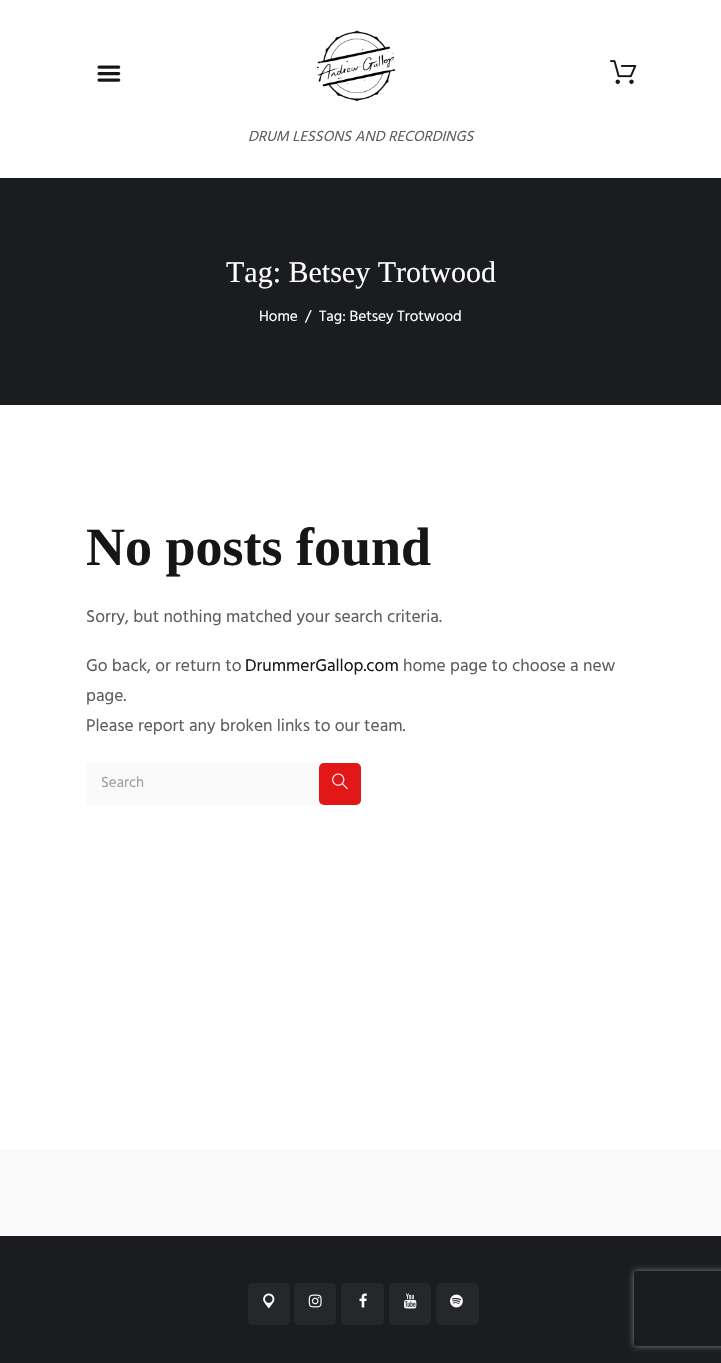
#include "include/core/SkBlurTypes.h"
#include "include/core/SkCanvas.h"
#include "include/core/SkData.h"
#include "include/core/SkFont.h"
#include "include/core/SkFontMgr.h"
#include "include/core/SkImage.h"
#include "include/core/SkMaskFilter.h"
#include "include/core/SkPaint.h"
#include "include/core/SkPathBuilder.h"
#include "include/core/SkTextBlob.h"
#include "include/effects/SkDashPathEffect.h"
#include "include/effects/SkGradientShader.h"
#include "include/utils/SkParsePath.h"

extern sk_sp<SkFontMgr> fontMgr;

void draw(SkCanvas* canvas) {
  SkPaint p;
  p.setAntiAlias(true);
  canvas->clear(SK_ColorWHITE);
  canvas->drawImageRect(SkImages::DeferredFromEncodedData(SkData::MakeFromFileName("images/1.png")), SkRect::MakeLTRB(97, 65, 121, 82), SkSamplingOptions());
  canvas->drawImageRect(SkImages::DeferredFromEncodedData(SkData::MakeFromFileName("images/2.png")), SkRect::MakeLTRB(610, 60, 637, 84), SkSamplingOptions());
  canvas->drawImageRect(SkImages::DeferredFromEncodedData(SkData::MakeFromFileName("images/3.png")), SkRect::MakeLTRB(315, 30, 396, 102), SkSamplingOptions());
  p.setColor(SkColorSetRGB(26, 28, 31));
  canvas->drawRect(SkRect::MakeLTRB(0, 179, 721, 405), p);
  p.setColor(SkColorSetRGB(23, 25, 28));
  canvas->drawRect(SkRect::MakeLTRB(0, 178, 721, 179), p);
  p.setColor(SkColorSetRGB(250, 250, 250));
  canvas->drawRoundRect(SkRect::MakeLTRB(86, 763, 361, 805), 4, 4, p);
  p.setColor(SkColorSetRGB(226, 24, 24));
  canvas->drawRoundRect(SkRect::MakeLTRB(319, 763, 361, 805), 5, 5, p);
  canvas->drawImageRect(SkImages::DeferredFromEncodedData(SkData::MakeFromFileName("images/4.png")), SkRect::MakeLTRB(332, 773, 348, 790), SkSamplingOptions());
  p.setColor(SkColorSetRGB(250, 250, 250));
  canvas->drawRect(SkRect::MakeLTRB(0, 1149, 721, 1236), p);
  p.setColor(SkColorSetRGB(26, 28, 31));
  canvas->drawRect(SkRect::MakeLTRB(0, 1236, 721, 1363), p);
  p.setColor(SkColorSetRGB(37, 39, 42));
  canvas->drawRoundRect(SkRect::MakeLTRB(248, 1283, 290, 1325), 5, 5, p);
  canvas->drawImageRect(SkImages::DeferredFromEncodedData(SkData::MakeFromFileName("images/5.png")), SkRect::MakeLTRB(263, 1293, 275, 1309), SkSamplingOptions());
  canvas->drawRoundRect(SkRect::MakeLTRB(294, 1283, 336, 1325), 5, 5, p);
  canvas->drawImageRect(SkImages::DeferredFromEncodedData(SkData::MakeFromFileName("images/6.png")), SkRect::MakeLTRB(308, 1294, 322, 1308), SkSamplingOptions());
  canvas->drawRoundRect(SkRect::MakeLTRB(341, 1283, 384, 1325), 5, 5, p);
  canvas->drawImageRect(SkImages::DeferredFromEncodedData(SkData::MakeFromFileName("images/7.png")), SkRect::MakeLTRB(359, 1293, 367, 1308), SkSamplingOptions());
  canvas->drawRoundRect(SkRect::MakeLTRB(389, 1283, 431, 1325), 5, 5, p);
  canvas->drawImageRect(SkImages::DeferredFromEncodedData(SkData::MakeFromFileName("images/8.png")), SkRect::MakeLTRB(404, 1293, 417, 1309), SkSamplingOptions());
  canvas->drawRoundRect(SkRect::MakeLTRB(436, 1283, 479, 1325), 5, 5, p);
  canvas->drawImageRect(SkImages::DeferredFromEncodedData(SkData::MakeFromFileName("images/9.png")), SkRect::MakeLTRB(450, 1294, 463, 1308), SkSamplingOptions());
  canvas->save();
  canvas->clipPath(SkPathBuilder(SkPathFillType::kEvenOdd).moveTo(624, 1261).lineTo(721, 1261).lineTo(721, 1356).lineTo(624, 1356).close().moveTo(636.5f, 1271).lineTo(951.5f, 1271).cubicTo(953, 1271, 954, 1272, 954, 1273.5f).lineTo(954, 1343.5f).cubicTo(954, 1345, 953, 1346, 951.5f, 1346).lineTo(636.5f, 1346).cubicTo(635, 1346, 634, 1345, 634, 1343.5f).lineTo(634, 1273.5f).cubicTo(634, 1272, 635, 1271, 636.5f, 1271).close().detach(), true);
  p.setColor(SkColorSetRGB(128, 128, 128));
  p.setMaskFilter(SkMaskFilter::MakeBlur(kNormal_SkBlurStyle, 3));
  canvas->drawRoundRect(SkRect::MakeLTRB(634, 1271, 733, 1346), 2.5f, 2.5f, p);
  p.setMaskFilter(nullptr);
  canvas->restore();
  SkFont font1(fontMgr->matchFamilyStyle("Hind", SkFontStyle::Italic()), 15);
  font1.setSubpixel(true);
  p.setColor(SkColorSetRGB(92, 93, 94));
  canvas->drawString("DRUM LESSONS AND RECORDINGS", 248, 141, font1, p);
  SkFont font2(fontMgr->matchFamilyStyle("Liberation Serif", SkFontStyle::Normal()), 30);
  font2.setSubpixel(true);
  p.setColor(SK_ColorWHITE);
  canvas->drawString("Tag: Betsey Trotwood", 226, 282, font2, p);
  SkFont font3(fontMgr->matchFamilyStyle("Hind", SkFontStyle::Normal()), 15.25f);
  font3.setSubpixel(true);
  canvas->drawString("Home", 259, 321, font3, p);
  canvas->drawString("/", 305, 321, font3, p);
  canvas->drawString("Tag: Betsey Trotwood", 319, 321, font3, p);
  SkFont font4(fontMgr->matchFamilyStyle("Liberation Serif", SkFontStyle::Bold()), 54);
  font4.setSubpixel(true);
  p.setColor(SkColorSetRGB(20, 22, 24));
  canvas->drawString("No posts found", 86, 565, font4, p);
  SkFont font5(fontMgr->matchFamilyStyle("Hind", SkFontStyle::Normal()), 17.5f);
  font5.setSubpixel(true);
  p.setColor(SkColorSetRGB(92, 93, 94));
  canvas->drawString("Sorry, but nothing matched your search criteria.", 86, 622, font5, p);
  canvas->drawString("Go back, or return to", 86, 671, font5, p);
  p.setColor(SkColorSetRGB(20, 22, 24));
  canvas->drawString("DrummerGallop.com", 245, 671, font5, p);
  p.setColor(SkColorSetRGB(92, 93, 94));
  canvas->drawString("home page to choose a new", 403, 671, font5, p);
  canvas->drawString("page.", 86, 701, font5, p);
  canvas->drawString("Please report any broken links to our team.", 86, 731, font5, p);
  SkFont font6(fontMgr->matchFamilyStyle("Hind", SkFontStyle::Normal()), 15);
  font6.setSubpixel(true);
  p.setColor(SkColorSetRGB(155, 156, 158));
  canvas->drawString("Search", 101, 787, font6, p);
}
